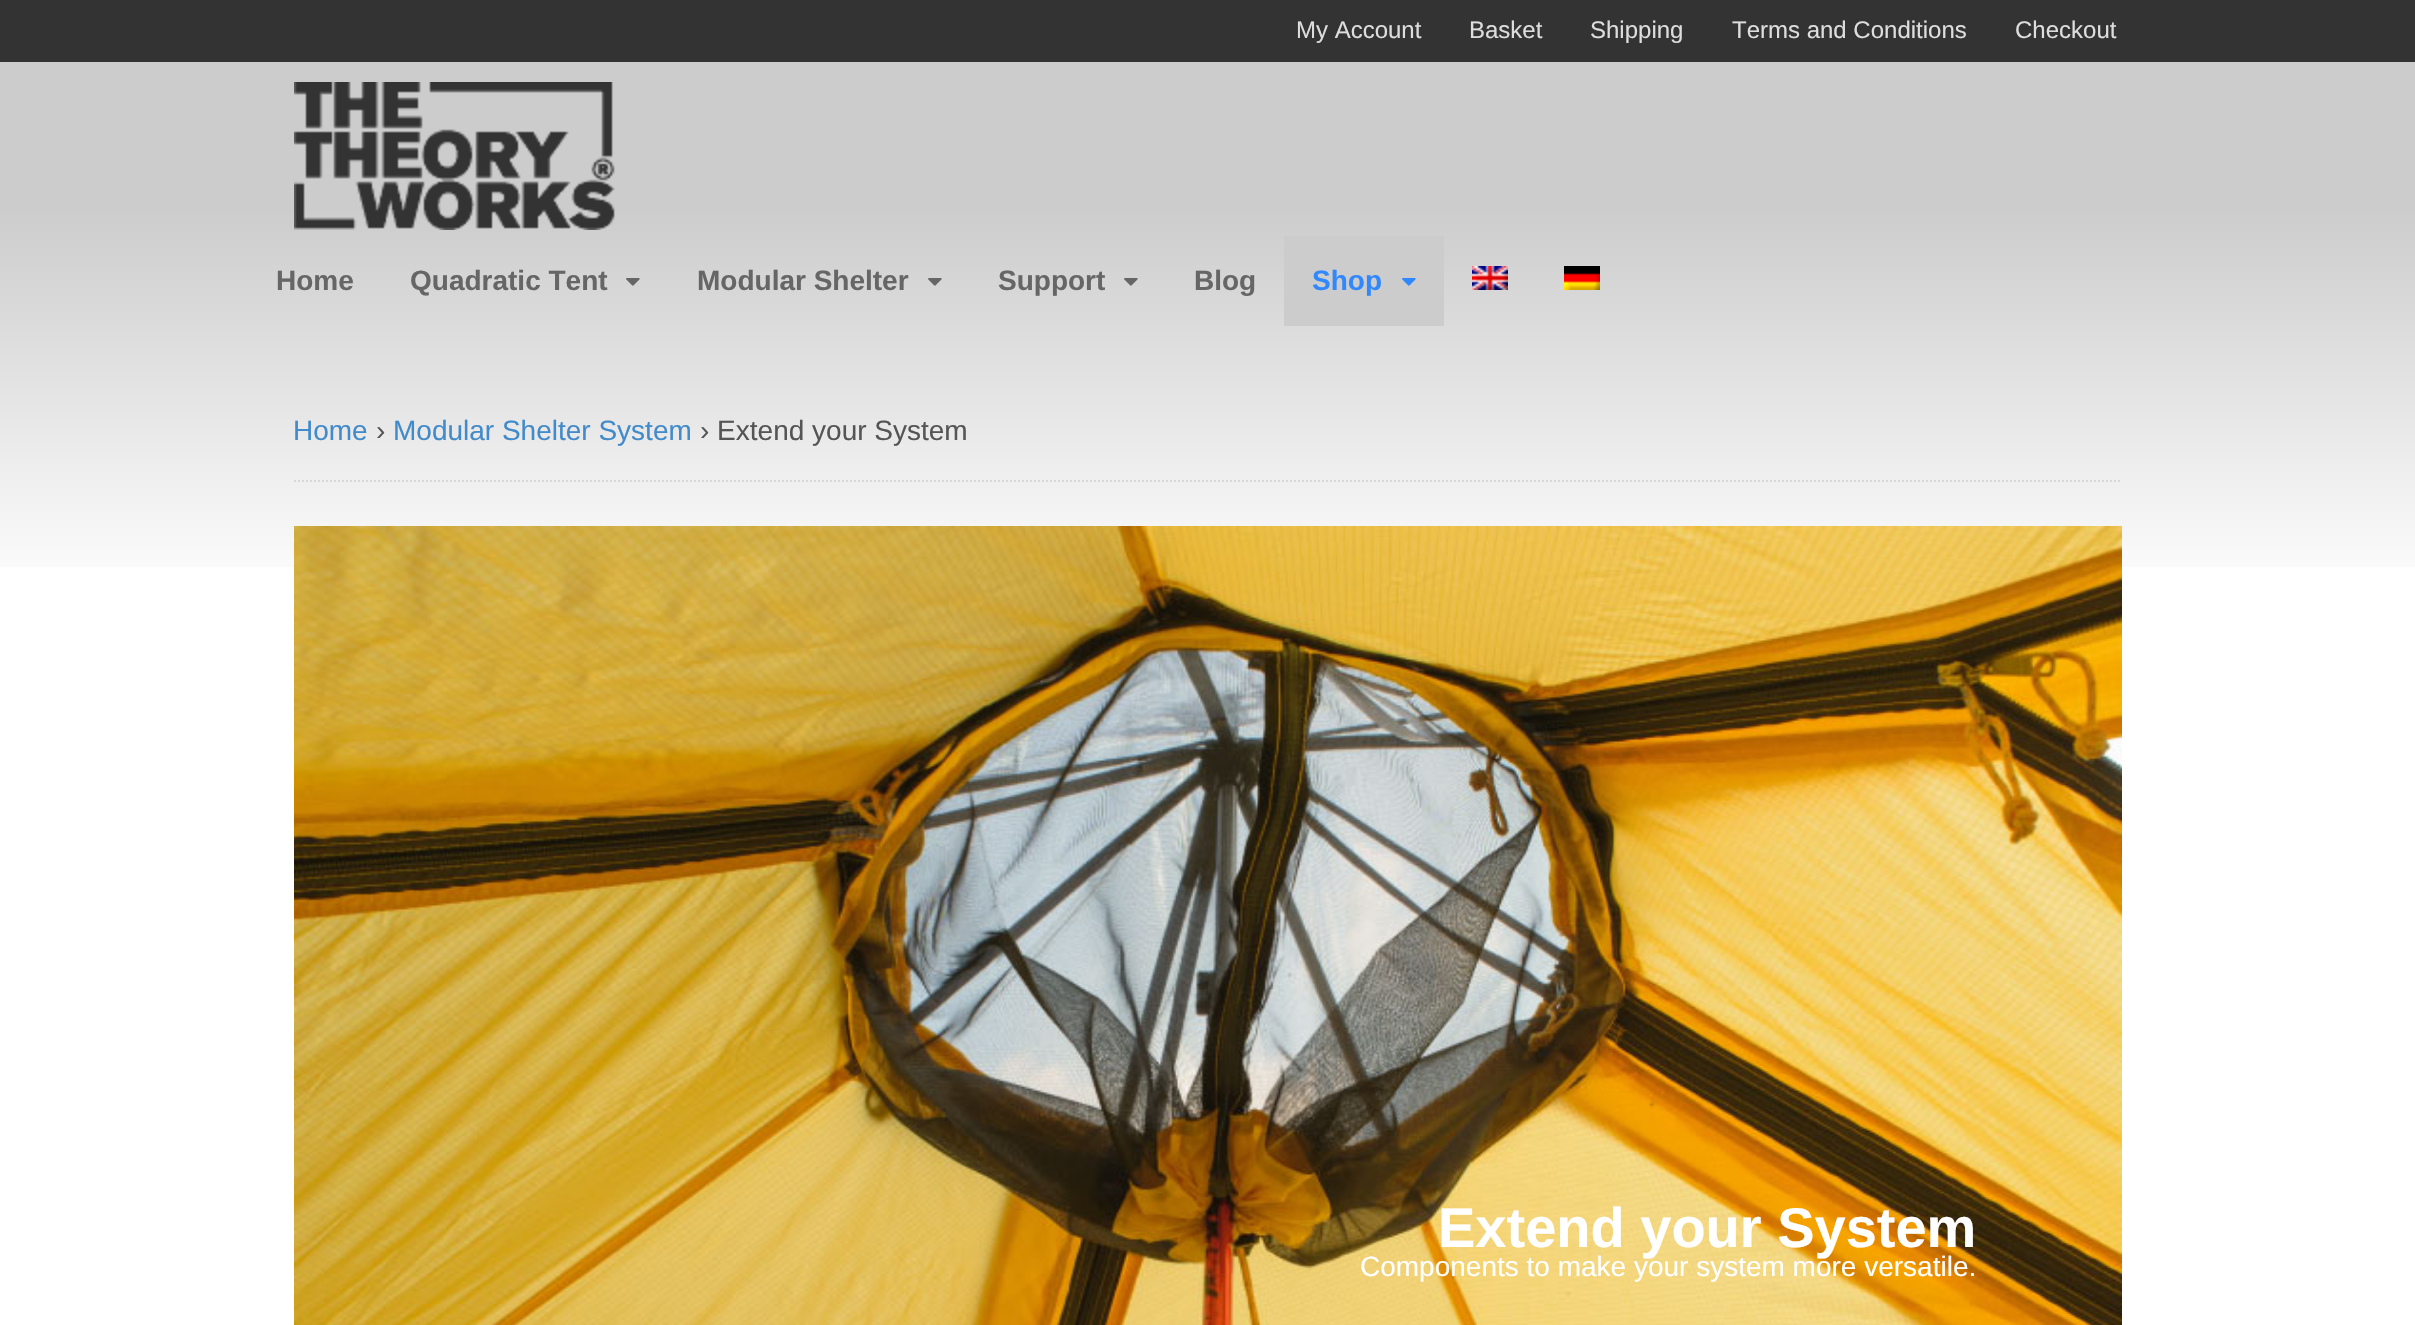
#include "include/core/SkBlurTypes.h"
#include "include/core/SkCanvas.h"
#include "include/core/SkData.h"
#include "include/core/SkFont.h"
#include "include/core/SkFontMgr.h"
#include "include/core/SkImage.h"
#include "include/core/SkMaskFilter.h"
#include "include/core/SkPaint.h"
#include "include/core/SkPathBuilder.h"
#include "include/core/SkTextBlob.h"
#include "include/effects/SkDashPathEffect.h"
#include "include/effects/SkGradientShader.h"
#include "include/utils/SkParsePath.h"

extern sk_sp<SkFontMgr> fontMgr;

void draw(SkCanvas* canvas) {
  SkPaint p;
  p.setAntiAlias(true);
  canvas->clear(SK_ColorWHITE);
  canvas->drawImageRect(SkImages::DeferredFromEncodedData(SkData::MakeFromFileName("images/1.png")), SkRect::MakeLTRB(0, 62, 2415, 567), SkSamplingOptions());
  p.setColor(SkColorSetRGB(51, 51, 51));
  canvas->drawRect(SkRect::MakeLTRB(0, 0, 2415, 62), p);
  canvas->drawImageRect(SkImages::DeferredFromEncodedData(SkData::MakeFromFileName("images/2.png")), SkRect::MakeLTRB(294, 82, 615, 230), SkSamplingOptions());
  canvas->drawImageRect(SkImages::DeferredFromEncodedData(SkData::MakeFromFileName("images/3.png")), SkRect::MakeLTRB(626, 278, 640, 286), SkSamplingOptions());
  canvas->drawImageRect(SkImages::DeferredFromEncodedData(SkData::MakeFromFileName("images/3.png")), SkRect::MakeLTRB(928, 278, 942, 286), SkSamplingOptions());
  canvas->drawImageRect(SkImages::DeferredFromEncodedData(SkData::MakeFromFileName("images/3.png")), SkRect::MakeLTRB(1124, 278, 1138, 286), SkSamplingOptions());
  p.setColor(SkColorSetRGB(204, 204, 204));
  canvas->drawRect(SkRect::MakeLTRB(1284, 236, 1444, 326), p);
  canvas->drawImageRect(SkImages::DeferredFromEncodedData(SkData::MakeFromFileName("images/4.png")), SkRect::MakeLTRB(1402, 278, 1416, 286), SkSamplingOptions());
  canvas->drawImageRect(SkImages::DeferredFromEncodedData(SkData::MakeFromFileName("images/5.png")), SkRect::MakeLTRB(1472, 266, 1508, 290), SkSamplingOptions());
  canvas->drawImageRect(SkImages::DeferredFromEncodedData(SkData::MakeFromFileName("images/6.png")), SkRect::MakeLTRB(1564, 266, 1600, 290), SkSamplingOptions());
  p.setStyle(SkPaint::kStroke_Style);
  p.setStrokeWidth(2);
  p.setColor(SkColorSetRGB(216, 216, 216));
  p.setPathEffect(SkDashPathEffect::Make({{2, 2}}, 0));
  canvas->drawPath(SkPathBuilder().moveTo(294, 481).lineTo(2122, 481).detach(), p);
  p.setPathEffect(nullptr);
  canvas->drawImageRect(SkImages::DeferredFromEncodedData(SkData::MakeFromFileName("images/7.png")), SkRect::MakeLTRB(294, 526, 2122, 1325), SkSamplingOptions());
  SkFont font1(fontMgr->matchFamilyStyle("Liberation Sans", SkFontStyle::Normal()), 24);
  font1.setSubpixel(true);
  p.setStyle(SkPaint::kFill_Style);
  p.setColor(SkColorSetRGB(221, 221, 221));
  canvas->drawString("My Account", 1296, 38, font1, p);
  canvas->drawString("Basket", 1469, 38, font1, p);
  canvas->drawString("Shipping", 1590, 38, font1, p);
  canvas->drawString("Terms and Conditions", 1732, 38, font1, p);
  canvas->drawString("Checkout", 2015, 38, font1, p);
  SkFont font2(fontMgr->matchFamilyStyle("Liberation Sans", SkFontStyle::Bold()), 28);
  font2.setSubpixel(true);
  p.setColor(SkColorSetRGB(102, 102, 102));
  canvas->drawString("Home", 276, 290, font2, p);
  canvas->drawString("Quadratic Tent", 410, 290, font2, p);
  canvas->drawString("Modular Shelter", 697, 290, font2, p);
  canvas->drawString("Support", 998, 290, font2, p);
  canvas->drawString("Blog", 1194, 290, font2, p);
  p.setColor(SkColorSetRGB(48, 136, 255));
  canvas->drawString("Shop", 1312, 290, font2, p);
  SkFont font3(fontMgr->matchFamilyStyle("Liberation Sans", SkFontStyle::Normal()), 28);
  font3.setSubpixel(true);
  p.setColor(SkColorSetRGB(66, 139, 202));
  canvas->drawString("Home", 293, 440, font3, p);
  p.setColor(SkColorSetRGB(85, 85, 85));
  canvas->drawString("›", 376, 440, font3, p);
  p.setColor(SkColorSetRGB(66, 139, 202));
  canvas->drawString("Modular Shelter System", 393, 440, font3, p);
  p.setColor(SkColorSetRGB(85, 85, 85));
  canvas->drawString("› Extend your System", 700, 440, font3, p);
  SkFont font4(fontMgr->matchFamilyStyle("Liberation Sans", SkFontStyle::Bold()), 56);
  font4.setSubpixel(true);
  p.setColor(SK_ColorWHITE);
  canvas->drawString("Extend your System", 1438, 1247, font4, p);
  canvas->drawString("Components to make your system more versatile.", 1360, 1276, font3, p);
}
